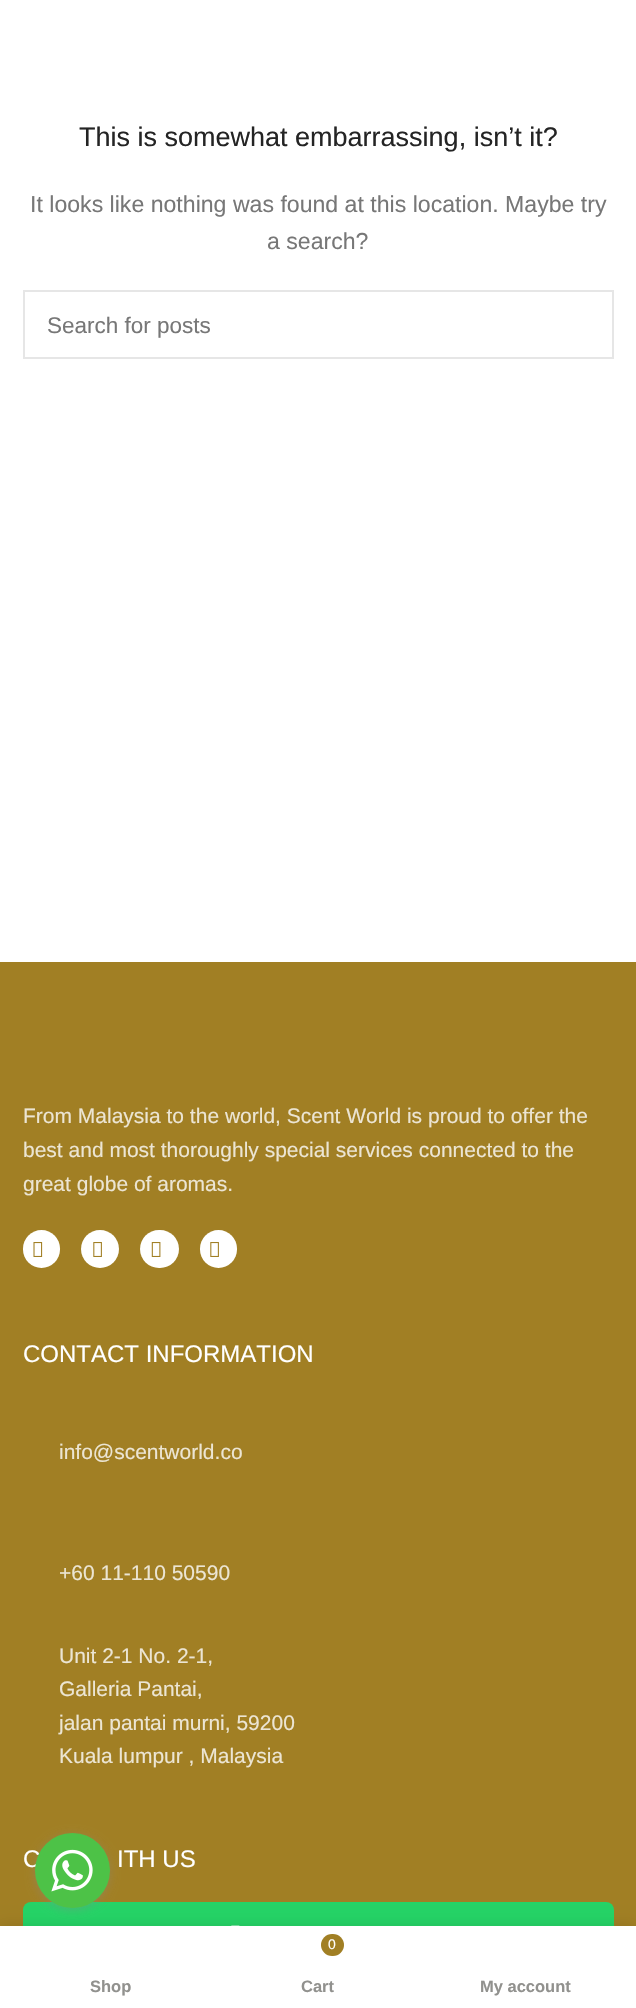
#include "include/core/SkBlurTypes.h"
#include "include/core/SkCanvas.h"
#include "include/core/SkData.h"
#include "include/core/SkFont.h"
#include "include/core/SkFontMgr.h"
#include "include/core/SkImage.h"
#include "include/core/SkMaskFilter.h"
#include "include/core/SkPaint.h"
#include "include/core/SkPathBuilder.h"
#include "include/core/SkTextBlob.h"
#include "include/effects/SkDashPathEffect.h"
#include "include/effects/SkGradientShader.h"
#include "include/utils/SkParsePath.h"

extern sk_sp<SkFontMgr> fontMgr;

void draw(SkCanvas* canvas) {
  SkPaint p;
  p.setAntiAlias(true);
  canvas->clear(SK_ColorWHITE);
  p.setStyle(SkPaint::kStroke_Style);
  p.setStrokeWidth(2);
  p.setColor(SkColorSetRGB(230, 230, 230));
  canvas->drawRect(SkRect::MakeLTRB(24, 291, 613, 358), p);
  p.setStyle(SkPaint::kFill_Style);
  p.setColor(SkColorSetRGB(161, 127, 36));
  canvas->drawRect(SkRect::MakeLTRB(0, 962, 636, 1926), p);
  p.setColor(SK_ColorWHITE);
  canvas->drawRoundRect(SkRect::MakeLTRB(23, 1230, 60, 1268), 18.5f, 18.5f, p);
  canvas->drawImageRect(SkImages::DeferredFromEncodedData(SkData::MakeFromFileName("images/1.png")), SkRect::MakeLTRB(33, 1242, 43, 1257), SkSamplingOptions());
  canvas->drawCircle(100, 1249, 19, p);
  canvas->drawImageRect(SkImages::DeferredFromEncodedData(SkData::MakeFromFileName("images/2.png")), SkRect::MakeLTRB(93, 1242, 102, 1257), SkSamplingOptions());
  canvas->drawRoundRect(SkRect::MakeLTRB(140, 1230, 179, 1268), 19, 19, p);
  canvas->drawImageRect(SkImages::DeferredFromEncodedData(SkData::MakeFromFileName("images/3.png")), SkRect::MakeLTRB(151, 1242, 161, 1257), SkSamplingOptions());
  canvas->drawRoundRect(SkRect::MakeLTRB(200, 1230, 237, 1268), 18.5f, 18.5f, p);
  canvas->drawImageRect(SkImages::DeferredFromEncodedData(SkData::MakeFromFileName("images/2.png")), SkRect::MakeLTRB(210, 1242, 219, 1257), SkSamplingOptions());
  p.setColor(SkColorSetRGB(37, 211, 102));
  canvas->drawRoundRect(SkRect::MakeLTRB(23, 1902, 614, 1965), 8, 8, p);
  canvas->drawImageRect(SkImages::DeferredFromEncodedData(SkData::MakeFromFileName("images/4.png")), SkRect::MakeLTRB(231, 1925, 240, 1926), SkSamplingOptions());
  p.setColor(SkColorSetARGB(102, 136, 136, 136));
  p.setMaskFilter(SkMaskFilter::MakeBlur(kNormal_SkBlurStyle, 5));
  canvas->drawRoundRect(SkRect::MakeLTRB(35, 1835, 110, 1910), 37.5f, 37.5f, p);
  p.setMaskFilter(nullptr);
  p.setColor(SkColorSetARGB(31, 0, 0, 0));
  p.setMaskFilter(SkMaskFilter::MakeBlur(kNormal_SkBlurStyle, 7));
  canvas->drawRect(SkRect::MakeLTRB(0, 1926, 636, 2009), p);
  p.setMaskFilter(nullptr);
  p.setColor(SK_ColorWHITE);
  canvas->drawRect(SkRect::MakeLTRB(0, 1926, 636, 2008), p);
  p.setColor(SkColorSetRGB(161, 127, 36));
  canvas->drawRoundRect(SkRect::MakeLTRB(321, 1934, 344, 1956), 11, 11, p);
  SkFont font1(fontMgr->matchFamilyStyle("Liberation Sans", SkFontStyle::Normal()), 27);
  font1.setSubpixel(true);
  p.setColor(SkColorSetRGB(36, 36, 36));
  canvas->drawString("This is somewhat embarrassing, isn’t it?", 79, 146, font1, p);
  SkFont font2(fontMgr->matchFamilyStyle("Liberation Sans", SkFontStyle::Normal()), 23.1f);
  font2.setSubpixel(true);
  p.setColor(SkColorSetRGB(119, 119, 119));
  canvas->drawString("It looks like nothing was found at this location. Maybe try", 30, 212, font2, p);
  canvas->drawString("a search?", 267, 249, font2, p);
  SkFont font3(fontMgr->matchFamilyStyle("Liberation Sans", SkFontStyle::Normal()), 22.5f);
  font3.setSubpixel(true);
  canvas->drawString("Search for posts", 47, 333, font3, p);
  SkFont font4(fontMgr->matchFamilyStyle("Liberation Sans", SkFontStyle::Normal()), 21);
  font4.setSubpixel(true);
  p.setColor(SkColorSetRGB(236, 229, 211));
  canvas->drawString("From Malaysia to the world, Scent World is proud to offer the", 23, 1123, font4, p);
  canvas->drawString("best and most thoroughly special services connected to the", 23, 1157, font4, p);
  canvas->drawString("great globe of aromas.", 23, 1191, font4, p);
  SkFont font5(fontMgr->matchFamilyStyle("Liberation Sans", SkFontStyle::Normal()), 24);
  font5.setSubpixel(true);
  p.setColor(SK_ColorWHITE);
  canvas->drawString("CONTACT INFORMATION", 23, 1362, font5, p);
  p.setColor(SkColorSetRGB(236, 229, 211));
  canvas->drawString("info@scentworld.co", 59, 1459, font4, p);
  canvas->drawString("+60 11-110 50590", 59, 1580, font4, p);
  canvas->drawString("Unit 2-1 No. 2-1,", 59, 1663, font4, p);
  canvas->drawString("Galleria Pantai,", 59, 1696, font4, p);
  canvas->drawString("jalan pantai murni, 59200", 59, 1730, font4, p);
  canvas->drawString("Kuala lumpur , Malaysia", 59, 1763, font4, p);
  p.setColor(SK_ColorWHITE);
  canvas->drawString("C", 23, 1867, font5, p);
  canvas->drawString("ITH US", 117, 1867, font5, p);
  p.setColor(SkColorSetRGB(77, 194, 71));
  canvas->drawCircle(72.5f, 1870.5f, 37.5f, p);
  canvas->drawImageRect(SkImages::DeferredFromEncodedData(SkData::MakeFromFileName("images/5.png")), SkRect::MakeLTRB(51, 1849, 93, 1892), SkSamplingOptions());
  SkFont font6(fontMgr->matchFamilyStyle("Liberation Sans", SkFontStyle::Bold()), 16.5f);
  font6.setSubpixel(true);
  p.setColor(SkColorSetRGB(145, 145, 142));
  canvas->drawString("Shop", 90, 1992, font6, p);
  SkFont font7(fontMgr->matchFamilyStyle("Liberation Sans", SkFontStyle::Normal()), 14);
  font7.setSubpixel(true);
  p.setColor(SK_ColorWHITE);
  canvas->drawString("0", 328, 1949, font7, p);
  p.setColor(SkColorSetRGB(145, 145, 142));
  canvas->drawString("Cart", 301, 1992, font6, p);
  canvas->drawString("My account", 480, 1992, font6, p);
}
